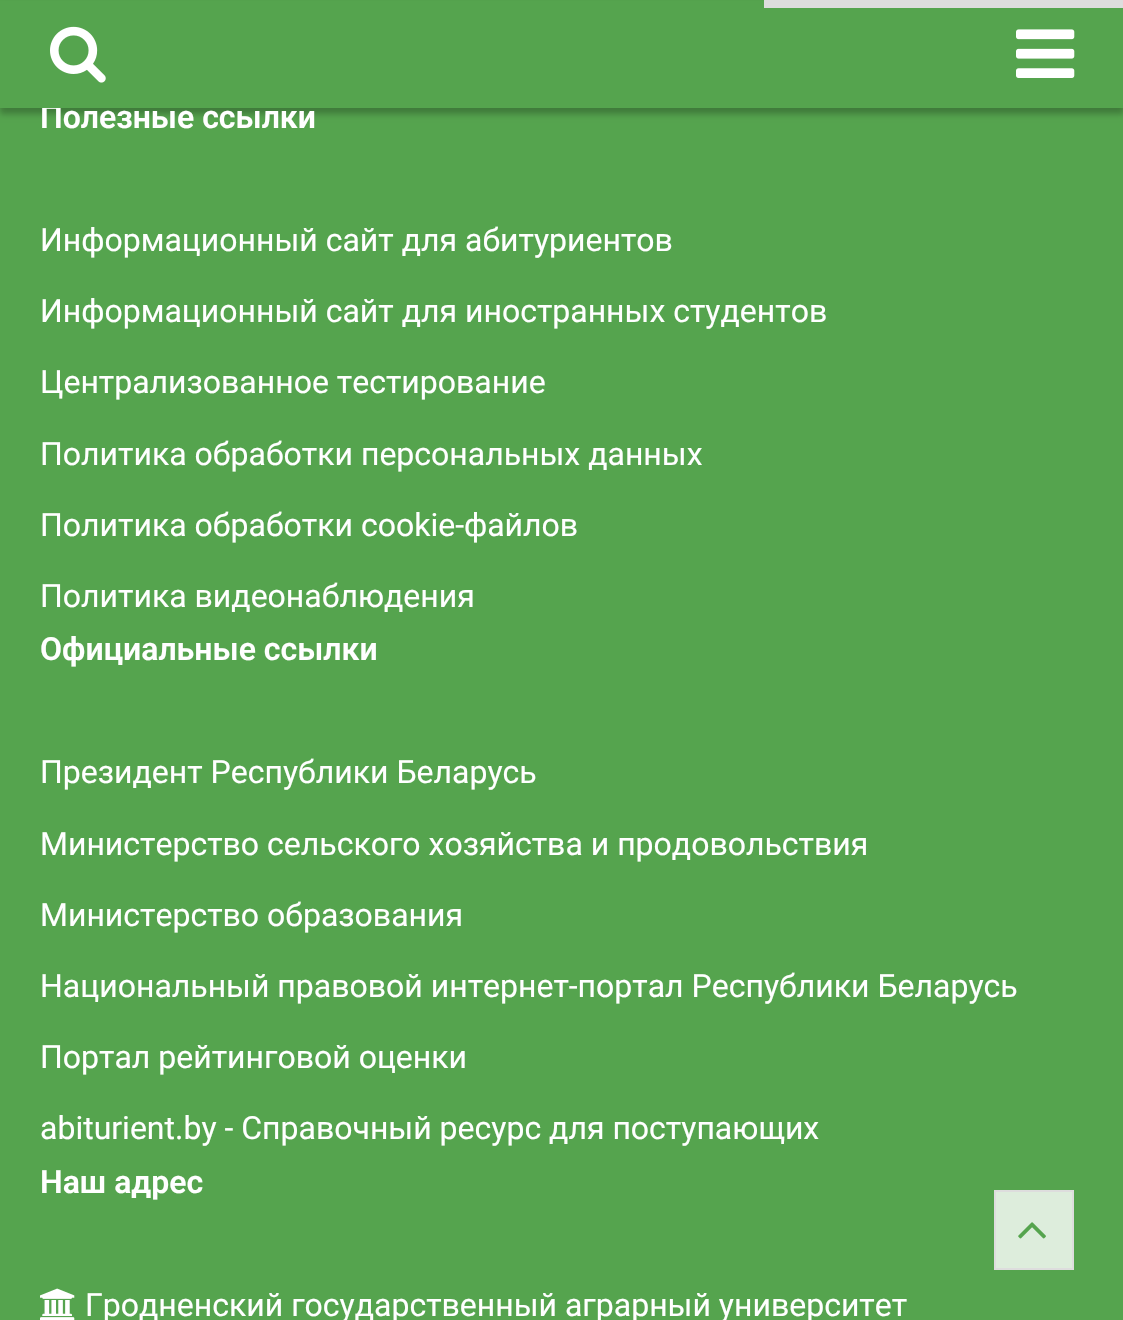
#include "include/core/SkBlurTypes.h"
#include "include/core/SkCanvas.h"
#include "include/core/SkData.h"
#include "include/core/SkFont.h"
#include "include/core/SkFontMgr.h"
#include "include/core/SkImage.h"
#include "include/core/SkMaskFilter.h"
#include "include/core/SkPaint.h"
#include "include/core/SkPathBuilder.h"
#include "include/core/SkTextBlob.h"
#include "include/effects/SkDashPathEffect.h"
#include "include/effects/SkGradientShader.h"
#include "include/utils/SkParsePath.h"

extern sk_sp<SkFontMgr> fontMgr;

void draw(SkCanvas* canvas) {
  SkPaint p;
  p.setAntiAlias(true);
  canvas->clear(SkColorSetRGB(85, 164, 78));
  p.setColor(SkColorSetARGB(64, 0, 0, 0));
  p.setMaskFilter(SkMaskFilter::MakeBlur(kNormal_SkBlurStyle, 3));
  canvas->drawRect(SkRect::MakeLTRB(0, 6, 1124, 114), p);
  p.setMaskFilter(nullptr);
  p.setColor(SkColorSetRGB(221, 221, 221));
  canvas->drawRect(SkRect::MakeLTRB(764, 0, 1123, 8), p);
  p.setColor(SkColorSetRGB(85, 164, 78));
  canvas->drawRect(SkRect::MakeLTRB(0, 1, 764, 8), p);
  canvas->drawImageRect(SkImages::DeferredFromEncodedData(SkData::MakeFromFileName("images/3.png")), SkRect::MakeLTRB(40, 1288, 75, 1320), SkSamplingOptions());
  p.setColor(SkColorSetRGB(221, 237, 220));
  canvas->drawRect(SkRect::MakeLTRB(995, 1191, 1073, 1269), p);
  p.setStyle(SkPaint::kStroke_Style);
  p.setStrokeWidth(2);
  p.setColor(SkColorSetRGB(221, 221, 221));
  canvas->drawRect(SkRect::MakeLTRB(995, 1191, 1073, 1269), p);
  canvas->drawImageRect(SkImages::DeferredFromEncodedData(SkData::MakeFromFileName("images/4.png")), SkRect::MakeLTRB(1018, 1222, 1046, 1239), SkSamplingOptions());
  SkFont font1(fontMgr->matchFamilyStyle("Roboto", SkFontStyle(600, SkFontStyle::kNormal_Width, SkFontStyle::kUpright_Slant)), 32);
  font1.setSubpixel(true);
  p.setStyle(SkPaint::kFill_Style);
  p.setColor(SK_ColorWHITE);
  canvas->drawString("Полезные ссылки", 40, 128, font1, p);
  p.setColor(SkColorSetRGB(85, 164, 78));
  canvas->drawRect(SkRect::MakeLTRB(0, 8, 1123, 108), p);
  canvas->drawImageRect(SkImages::DeferredFromEncodedData(SkData::MakeFromFileName("images/1.png")), SkRect::MakeLTRB(50, 26, 106, 83), SkSamplingOptions());
  canvas->drawImageRect(SkImages::DeferredFromEncodedData(SkData::MakeFromFileName("images/2.png")), SkRect::MakeLTRB(1016, 29, 1075, 78), SkSamplingOptions());
  SkFont font2(fontMgr->matchFamilyStyle("Roboto", SkFontStyle::Normal()), 32);
  font2.setSubpixel(true);
  p.setColor(SK_ColorWHITE);
  canvas->drawString("Информационный сайт для абитуриентов", 40, 251, font2, p);
  canvas->drawString("Информационный сайт для иностранных студентов", 40, 322, font2, p);
  canvas->drawString("Централизованное тестирование", 40, 393, font2, p);
  canvas->drawString("Политика обработки персональных данных", 40, 465, font2, p);
  canvas->drawString("Политика обработки cookie-файлов", 40, 536, font2, p);
  canvas->drawString("Политика видеонаблюдения", 40, 607, font2, p);
  canvas->drawString("Официальные ссылки", 40, 660, font1, p);
  canvas->drawString("Президент Республики Беларусь", 40, 783, font2, p);
  canvas->drawString("Министерство сельского хозяйства и продовольствия", 40, 855, font2, p);
  canvas->drawString("Министерство образования", 40, 926, font2, p);
  canvas->drawString("Национальный правовой интернет-портал Республики Беларусь", 40, 997, font2, p);
  canvas->drawString("Портал рейтинговой оценки", 40, 1068, font2, p);
  canvas->drawString("abiturient.by - Справочный ресурс для поступающих", 40, 1139, font2, p);
  canvas->drawString("Наш адрес", 40, 1193, font1, p);
  canvas->drawString("Гродненский государственный аграрный университет", 85, 1316, font2, p);
}
